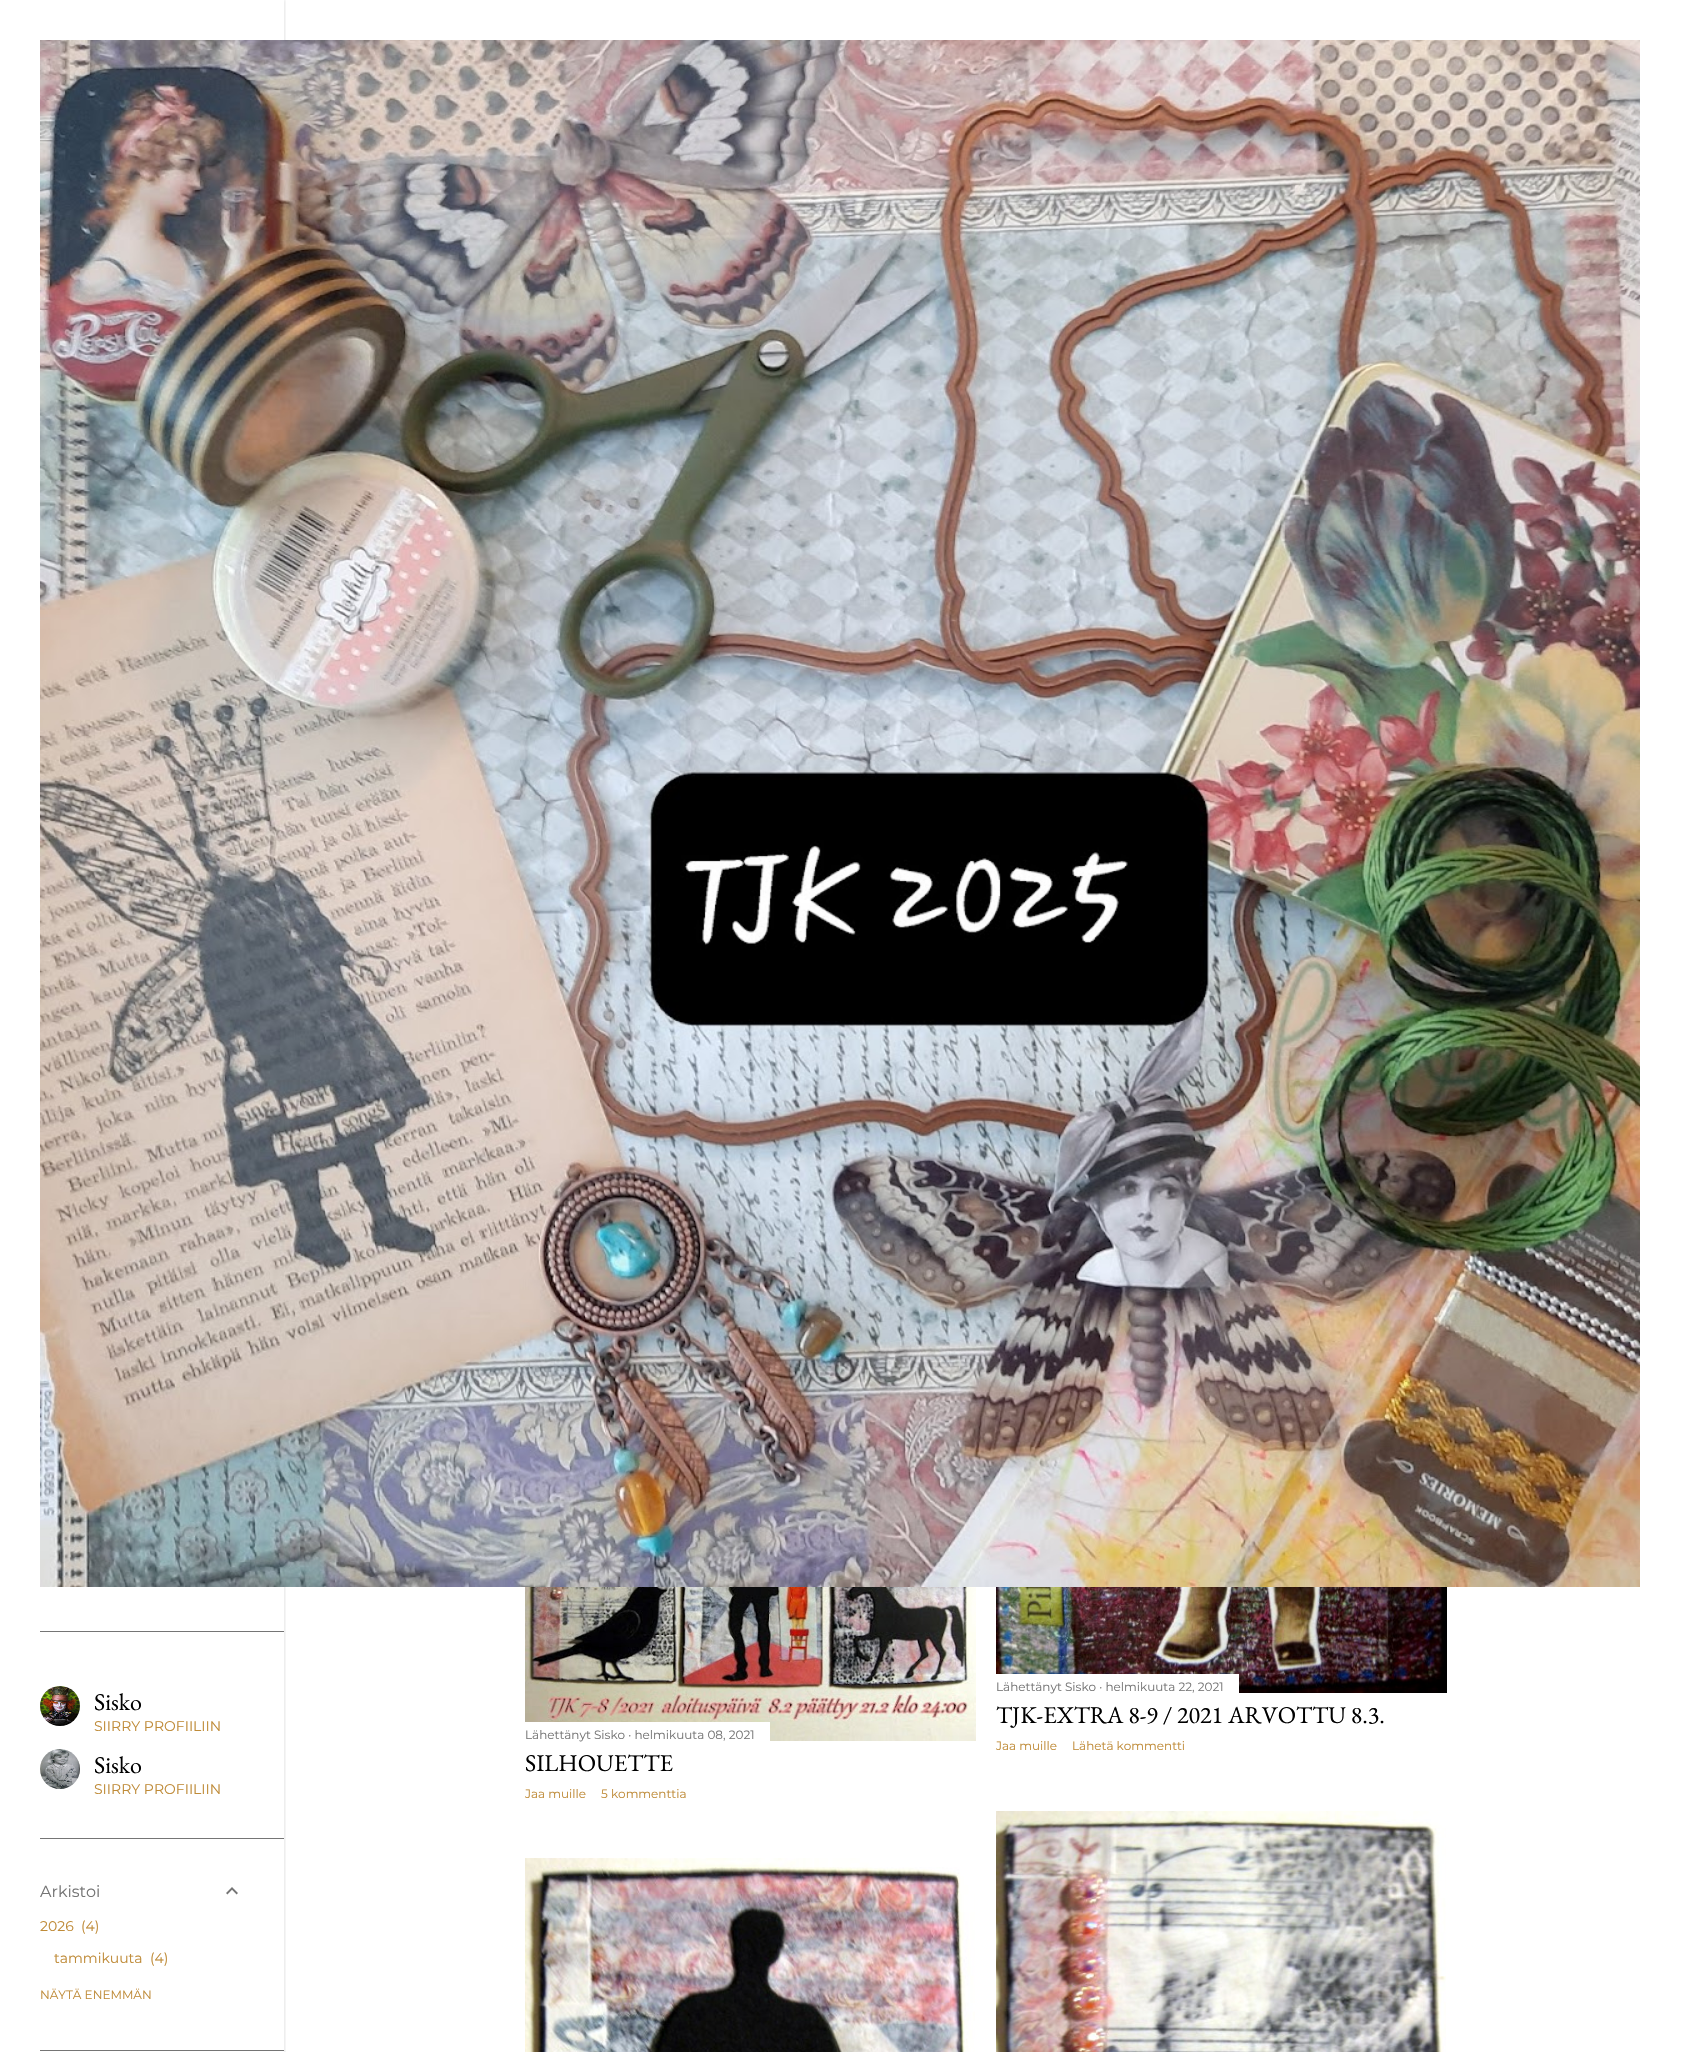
#include "include/core/SkBlurTypes.h"
#include "include/core/SkCanvas.h"
#include "include/core/SkData.h"
#include "include/core/SkFont.h"
#include "include/core/SkFontMgr.h"
#include "include/core/SkImage.h"
#include "include/core/SkMaskFilter.h"
#include "include/core/SkPaint.h"
#include "include/core/SkPathBuilder.h"
#include "include/core/SkTextBlob.h"
#include "include/effects/SkDashPathEffect.h"
#include "include/effects/SkGradientShader.h"
#include "include/utils/SkParsePath.h"

extern sk_sp<SkFontMgr> fontMgr;

void draw(SkCanvas* canvas) {
  SkPaint p;
  p.setAntiAlias(true);
  canvas->clear(SK_ColorWHITE);
  canvas->save();
  canvas->clipRect(SkRect::MakeLTRB(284, 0, 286, 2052));
  p.setColor(SkColorSetARGB(26, 0, 0, 0));
  p.setMaskFilter(SkMaskFilter::MakeBlur(kNormal_SkBlurStyle, 1.5f));
  canvas->drawRect(SkRect::MakeLTRB(1, 0, 285, 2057), p);
  p.setMaskFilter(nullptr);
  canvas->restore();
  canvas->drawImageRect(SkImages::DeferredFromEncodedData(SkData::MakeFromFileName("images/1.png")), SkRect::MakeLTRB(40, 40, 1640, 1587), SkSamplingOptions());
  p.setColor(SkColorSetRGB(117, 117, 117));
  canvas->drawRect(SkRect::MakeLTRB(40, 1631, 284, 1632), p);
  canvas->drawImageRect(SkImages::DeferredFromEncodedData(SkData::MakeFromFileName("images/2.png")), SkRect::MakeLTRB(40, 1686, 80, 1726), SkSamplingOptions());
  canvas->drawImageRect(SkImages::DeferredFromEncodedData(SkData::MakeFromFileName("images/3.png")), SkRect::MakeLTRB(40, 1749, 80, 1789), SkSamplingOptions());
  canvas->drawRect(SkRect::MakeLTRB(40, 1838, 284, 1839), p);
  canvas->drawImageRect(SkImages::DeferredFromEncodedData(SkData::MakeFromFileName("images/4.png")), SkRect::MakeLTRB(226, 1887, 238, 1895), SkSamplingOptions());
  canvas->drawRect(SkRect::MakeLTRB(40, 2050, 284, 2051), p);
  canvas->drawImageRect(SkImages::DeferredFromEncodedData(SkData::MakeFromFileName("images/5.png")), SkRect::MakeLTRB(996, 1587, 1447, 1693), SkSamplingOptions());
  p.setColor(SK_ColorWHITE);
  canvas->drawRect(SkRect::MakeLTRB(996, 1674, 1239, 1693), p);
  canvas->drawImageRect(SkImages::DeferredFromEncodedData(SkData::MakeFromFileName("images/6.png")), SkRect::MakeLTRB(525, 1587, 976, 1741), SkSamplingOptions());
  canvas->drawRect(SkRect::MakeLTRB(525, 1722, 770, 1741), p);
  canvas->drawImageRect(SkImages::DeferredFromEncodedData(SkData::MakeFromFileName("images/7.png")), SkRect::MakeLTRB(525, 1858, 975, 2052), SkSamplingOptions());
  canvas->drawImageRect(SkImages::DeferredFromEncodedData(SkData::MakeFromFileName("images/8.png")), SkRect::MakeLTRB(996, 1811, 1446, 2052), SkSamplingOptions());
  SkFont font1(fontMgr->matchFamilyStyle("EB Garamond", SkFontStyle::Normal()), 24);
  font1.setSubpixel(true);
  p.setColor(SK_ColorBLACK);
  canvas->drawString("Sisko", 94, 1710, font1, p);
  SkFont font2(fontMgr->matchFamilyStyle("Montserrat", SkFontStyle::Normal()), 14);
  font2.setSubpixel(true);
  p.setColor(SkColorSetRGB(191, 139, 56));
  canvas->drawString("SIIRRY PROFIILIIN", 94, 1731, font2, p);
  p.setColor(SK_ColorBLACK);
  canvas->drawString("Sisko", 94, 1773, font1, p);
  p.setColor(SkColorSetRGB(191, 139, 56));
  canvas->drawString("SIIRRY PROFIILIIN", 94, 1794, font2, p);
  SkFont font3(fontMgr->matchFamilyStyle("Montserrat", SkFontStyle::Normal()), 16);
  font3.setSubpixel(true);
  p.setColor(SkColorSetRGB(117, 117, 117));
  canvas->drawString("Arkistoi", 40, 1897, font3, p);
  p.setColor(SkColorSetRGB(191, 139, 56));
  canvas->drawString("2026", 40, 1931, font2, p);
  canvas->drawString("(4)", 81, 1931, font2, p);
  canvas->drawString("tammikuuta", 54, 1963, font2, p);
  canvas->drawString("(4)", 150, 1963, font2, p);
  SkFont font4(fontMgr->matchFamilyStyle("Montserrat", SkFontStyle::Normal()), 12);
  font4.setSubpixel(true);
  canvas->drawString("NÄYTÄ ENEMMÄN", 40, 1999, font4, p);
  p.setColor(SkColorSetRGB(117, 117, 117));
  canvas->drawString("Lähettänyt Sisko · helmikuuta 22, 2021", 996, 1691, font4, p);
  p.setColor(SK_ColorBLACK);
  canvas->drawString("TJK-EXTRA 8-9 / 2021 ARVOTTU 8.3.", 996, 1723, font1, p);
  p.setColor(SkColorSetRGB(191, 139, 56));
  canvas->drawString("Jaa muille", 996, 1750, font4, p);
  canvas->drawString("Lähetä kommentti", 1072, 1750, font4, p);
  p.setColor(SkColorSetRGB(117, 117, 117));
  canvas->drawString("Lähettänyt Sisko · helmikuuta 08, 2021", 525, 1739, font4, p);
  p.setColor(SK_ColorBLACK);
  canvas->drawString("SILHOUETTE", 525, 1771, font1, p);
  p.setColor(SkColorSetRGB(191, 139, 56));
  canvas->drawString("Jaa muille", 525, 1798, font4, p);
  canvas->drawString("5 kommenttia", 601, 1798, font4, p);
}
